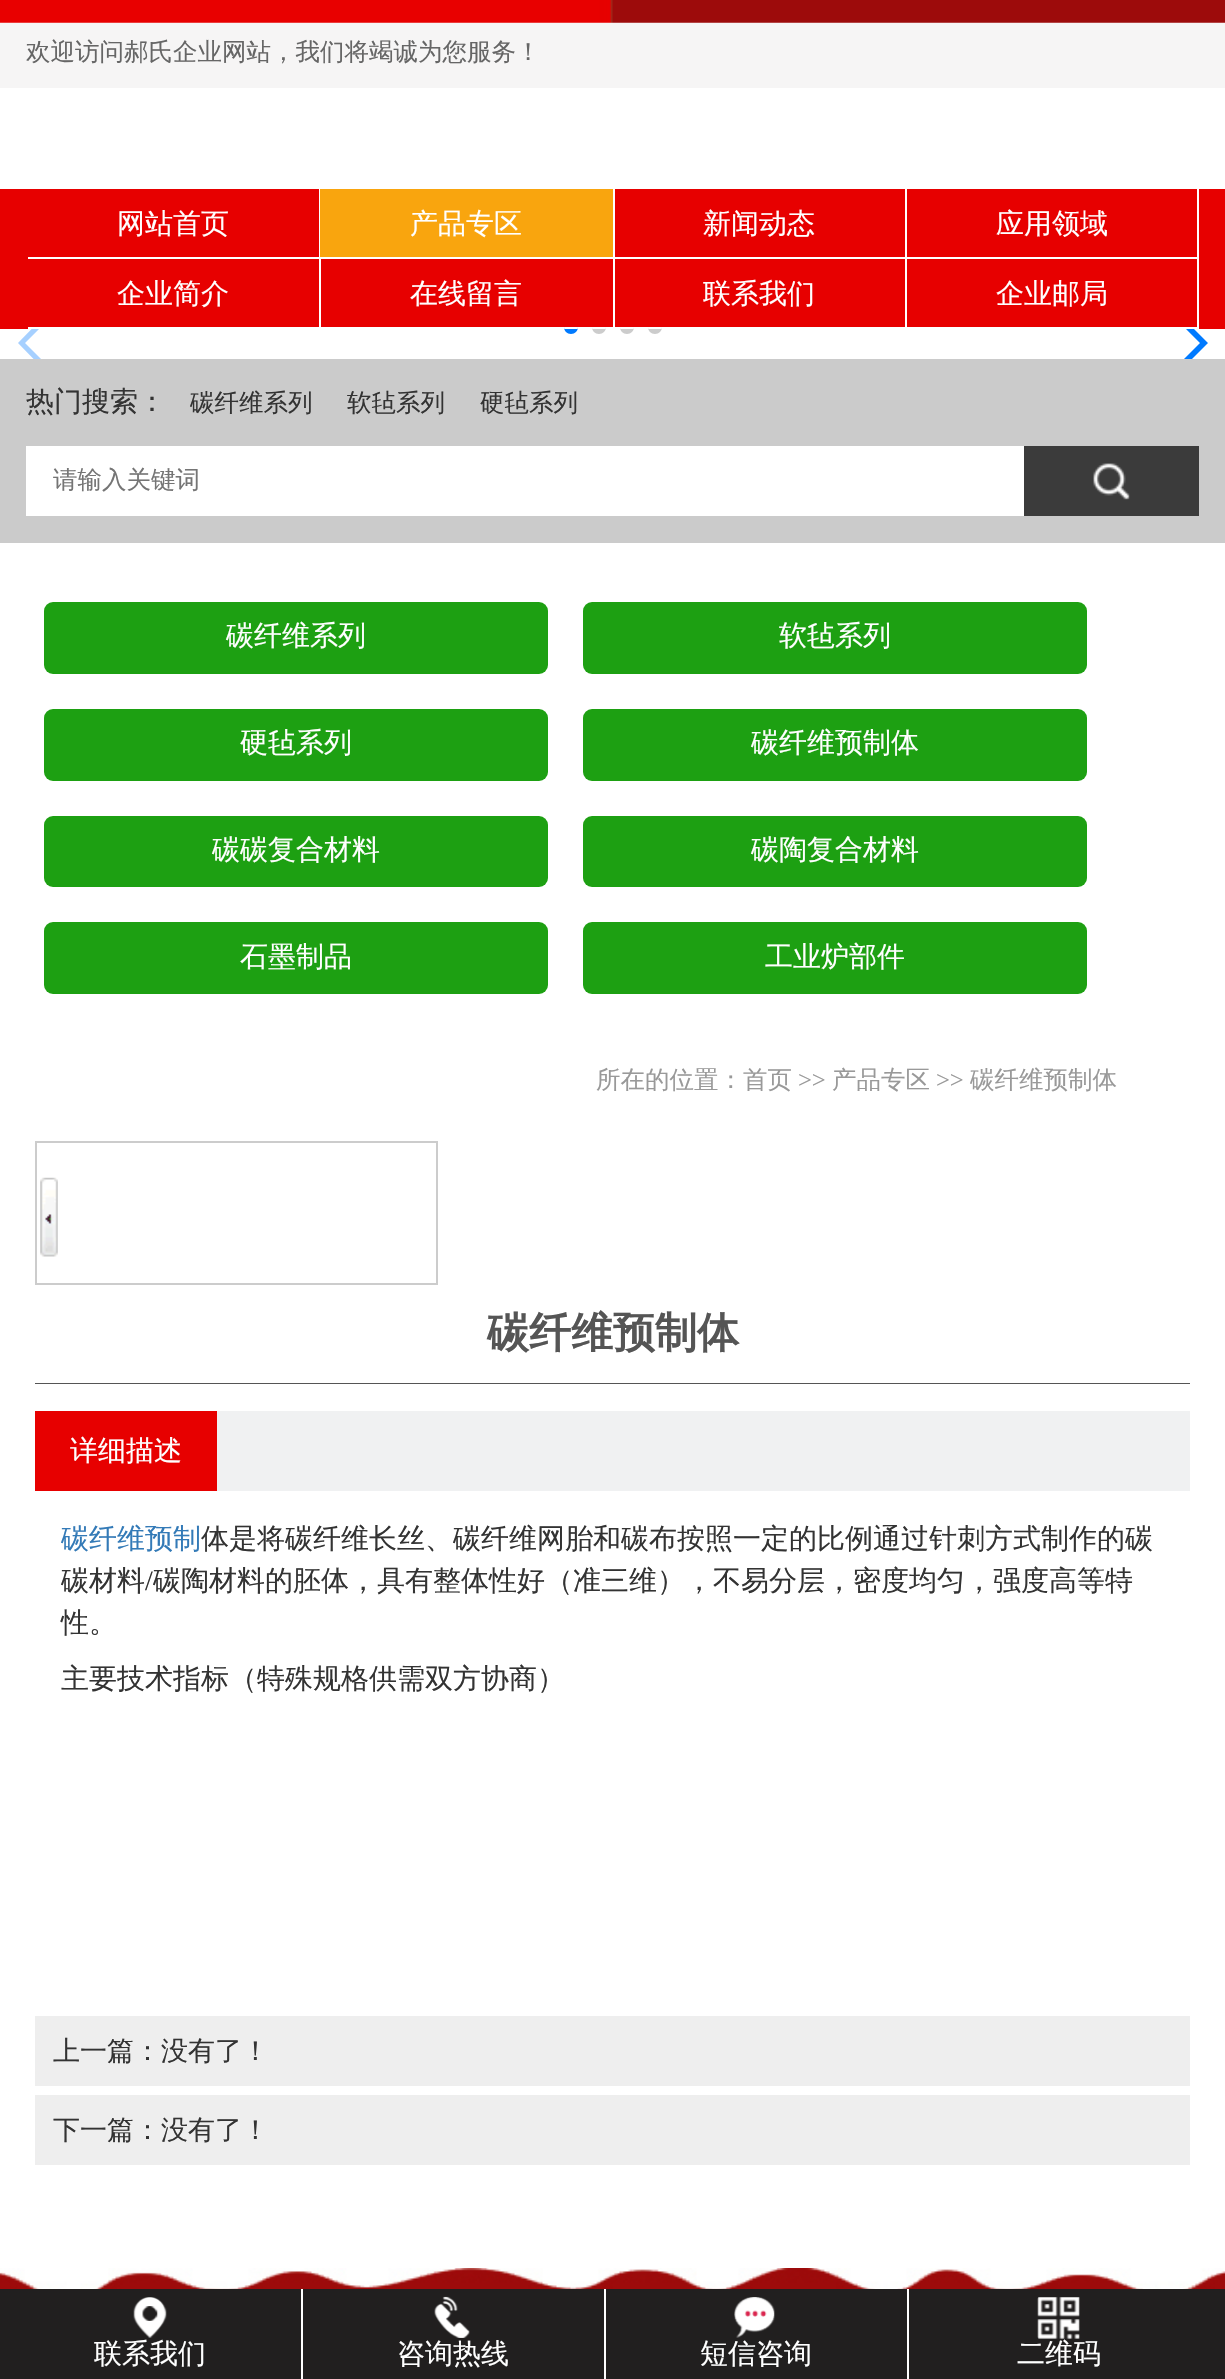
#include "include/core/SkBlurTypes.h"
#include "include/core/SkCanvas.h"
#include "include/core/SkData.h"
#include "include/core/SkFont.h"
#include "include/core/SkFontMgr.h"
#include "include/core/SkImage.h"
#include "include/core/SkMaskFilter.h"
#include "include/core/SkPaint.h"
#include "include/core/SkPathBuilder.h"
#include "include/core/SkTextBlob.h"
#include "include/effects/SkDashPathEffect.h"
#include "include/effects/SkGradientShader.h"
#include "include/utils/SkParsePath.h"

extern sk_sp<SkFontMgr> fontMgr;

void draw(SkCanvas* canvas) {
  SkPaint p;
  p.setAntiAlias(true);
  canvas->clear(SK_ColorWHITE);
  p.setColor(SkColorSetRGB(246, 245, 245));
  canvas->drawRect(SkRect::MakeLTRB(0, 22, 1225, 88), p);
  canvas->drawImageRect(SkImages::DeferredFromEncodedData(SkData::MakeFromFileName("images/1.png")), SkRect::MakeLTRB(0, 0, 1225, 23), SkSamplingOptions());
  p.setColor(SkColorSetRGB(231, 0, 0));
  canvas->drawRect(SkRect::MakeLTRB(0, 189, 1225, 329), p);
  p.setColor(SK_ColorWHITE);
  canvas->drawRect(SkRect::MakeLTRB(319, 189, 320, 259), p);
  canvas->drawRect(SkRect::MakeLTRB(28, 257, 320, 259), p);
  p.setColor(SkColorSetRGB(249, 165, 14));
  canvas->drawRect(SkRect::MakeLTRB(320, 189, 613, 257), p);
  p.setColor(SK_ColorWHITE);
  canvas->drawRect(SkRect::MakeLTRB(613, 189, 615, 329), p);
  canvas->drawRect(SkRect::MakeLTRB(320, 257, 614, 259), p);
  canvas->drawRect(SkRect::MakeLTRB(905, 189, 907, 329), p);
  canvas->drawRect(SkRect::MakeLTRB(614, 257, 907, 259), p);
  canvas->drawRect(SkRect::MakeLTRB(1197, 189, 1199, 329), p);
  canvas->drawRect(SkRect::MakeLTRB(907, 257, 1199, 259), p);
  canvas->drawRect(SkRect::MakeLTRB(319, 259, 321, 329), p);
  canvas->drawRect(SkRect::MakeLTRB(28, 327, 1199, 329), p);
  canvas->save();
  canvas->clipRect(SkRect::MakeLTRB(18, 329, 65, 359));
  p.setColor(SkColorSetRGB(166, 208, 255));
  canvas->drawPath(SkPathBuilder().moveTo(18, 343).lineTo(56, 304).lineTo(60, 308).lineTo(25, 343).lineTo(60, 378).lineTo(56, 382).close().detach(), p);
  canvas->restore();
  p.setColor(SkColorSetRGB(0, 122, 255));
  canvas->drawPath(SkPathBuilder().moveTo(564, 329).lineTo(578, 329).lineTo(578, 327).cubicTo(578, 331, 575, 334, 571, 334).cubicTo(567, 334, 564, 331, 564, 327).close().detach(), p);
  p.setColor(SkColorSetRGB(204, 204, 204));
  canvas->drawPath(SkPathBuilder().moveTo(592, 329).lineTo(606, 329).lineTo(606, 327).cubicTo(606, 331, 603, 334, 599, 334).cubicTo(595, 334, 592, 331, 592, 327).close().detach(), p);
  canvas->drawPath(SkPathBuilder().moveTo(620, 329).lineTo(634, 329).lineTo(634, 327).cubicTo(634, 331, 631, 334, 627, 334).cubicTo(623, 334, 620, 331, 620, 327).close().detach(), p);
  canvas->drawPath(SkPathBuilder().moveTo(648, 329).lineTo(662, 329).lineTo(662, 327).cubicTo(662, 331, 659, 334, 655, 334).cubicTo(651, 334, 648, 331, 648, 327).close().detach(), p);
  canvas->save();
  canvas->clipRect(SkRect::MakeLTRB(1160, 329, 1208, 359));
  p.setColor(SkColorSetRGB(0, 122, 255));
  canvas->drawPath(SkPathBuilder().moveTo(1208, 343).lineTo(1169, 382).lineTo(1165, 378).lineTo(1200, 343).lineTo(1165, 308).lineTo(1169, 304).close().detach(), p);
  canvas->restore();
  p.setColor(SkColorSetRGB(203, 203, 203));
  canvas->drawRect(SkRect::MakeLTRB(0, 359, 1225, 543), p);
  p.setColor(SK_ColorWHITE);
  canvas->drawRect(SkRect::MakeLTRB(26, 446, 1024, 516), p);
  p.setColor(SkColorSetRGB(59, 59, 59));
  canvas->drawRect(SkRect::MakeLTRB(1024, 446, 1199, 516), p);
  canvas->drawImageRect(SkImages::DeferredFromEncodedData(SkData::MakeFromFileName("images/2.png")), SkRect::MakeLTRB(1093, 463, 1130, 500), SkSamplingOptions());
  p.setColor(SkColorSetRGB(29, 160, 18));
  canvas->drawRoundRect(SkRect::MakeLTRB(44, 602, 548, 674), 9, 9, p);
  canvas->drawRoundRect(SkRect::MakeLTRB(583, 602, 1087, 674), 9, 9, p);
  canvas->drawRoundRect(SkRect::MakeLTRB(44, 709, 548, 781), 9, 9, p);
  canvas->drawRoundRect(SkRect::MakeLTRB(583, 709, 1087, 781), 9, 9, p);
  canvas->drawRoundRect(SkRect::MakeLTRB(44, 816, 548, 887), 9, 9, p);
  canvas->drawRoundRect(SkRect::MakeLTRB(583, 816, 1087, 887), 9, 9, p);
  canvas->drawRoundRect(SkRect::MakeLTRB(44, 922, 548, 994), 9, 9, p);
  canvas->drawRoundRect(SkRect::MakeLTRB(583, 922, 1087, 994), 9, 9, p);
  p.setStyle(SkPaint::kStroke_Style);
  p.setStrokeWidth(2);
  p.setColor(SkColorSetRGB(204, 204, 204));
  canvas->drawRect(SkRect::MakeLTRB(36, 1142, 437, 1284), p);
  canvas->drawImageRect(SkImages::DeferredFromEncodedData(SkData::MakeFromFileName("images/3.png")), SkRect::MakeLTRB(40, 1177, 58, 1257), SkSamplingOptions());
  p.setStyle(SkPaint::kFill_Style);
  p.setColor(SkColorSetRGB(85, 85, 85));
  canvas->drawRect(SkRect::MakeLTRB(35, 1383, 1190, 1384), p);
  p.setColor(SkColorSetRGB(240, 241, 242));
  canvas->drawRect(SkRect::MakeLTRB(217, 1411, 1190, 1491), p);
  p.setColor(SkColorSetRGB(231, 0, 0));
  canvas->drawRect(SkRect::MakeLTRB(35, 1411, 217, 1491), p);
  p.setColor(SkColorSetRGB(238, 238, 238));
  canvas->drawRect(SkRect::MakeLTRB(35, 2016, 1190, 2086), p);
  canvas->drawRect(SkRect::MakeLTRB(35, 2095, 1190, 2165), p);
  canvas->drawImageRect(SkImages::DeferredFromEncodedData(SkData::MakeFromFileName("images/4.png")), SkRect::MakeLTRB(0, 2268, 1225, 2289), SkSamplingOptions());
  p.setColor(SkColorSetRGB(33, 31, 31));
  canvas->drawRect(SkRect::MakeLTRB(0, 2289, 1225, 2379), p);
  p.setColor(SK_ColorWHITE);
  canvas->drawRect(SkRect::MakeLTRB(301, 2289, 303, 2379), p);
  canvas->drawImageRect(SkImages::DeferredFromEncodedData(SkData::MakeFromFileName("images/5.png")), SkRect::MakeLTRB(133, 2297, 167, 2338), SkSamplingOptions());
  canvas->drawRect(SkRect::MakeLTRB(604, 2289, 606, 2379), p);
  canvas->drawImageRect(SkImages::DeferredFromEncodedData(SkData::MakeFromFileName("images/6.png")), SkRect::MakeLTRB(434, 2296, 470, 2338), SkSamplingOptions());
  canvas->drawRect(SkRect::MakeLTRB(907, 2289, 909, 2379), p);
  canvas->drawImageRect(SkImages::DeferredFromEncodedData(SkData::MakeFromFileName("images/7.png")), SkRect::MakeLTRB(734, 2297, 775, 2338), SkSamplingOptions());
  canvas->drawImageRect(SkImages::DeferredFromEncodedData(SkData::MakeFromFileName("images/8.png")), SkRect::MakeLTRB(1037, 2297, 1080, 2339), SkSamplingOptions());
  SkFont font1(fontMgr->matchFamilyStyle("WenQuanYi Zen Hei", SkFontStyle(500, SkFontStyle::kNormal_Width, SkFontStyle::kUpright_Slant)), 24.5f);
  font1.setSubpixel(true);
  p.setColor(SkColorSetRGB(102, 102, 102));
  canvas->drawString("欢迎访问郝氏企业网站，我们将竭诚为您服务！", 26, 60, font1, p);
  SkFont font2(fontMgr->matchFamilyStyle("WenQuanYi Zen Hei", SkFontStyle(500, SkFontStyle::kNormal_Width, SkFontStyle::kUpright_Slant)), 28);
  font2.setSubpixel(true);
  p.setColor(SK_ColorWHITE);
  canvas->drawString("网站首页", 117, 233, font2, p);
  canvas->drawString("产品专区", 410, 233, font2, p);
  canvas->drawString("新闻动态", 703, 233, font2, p);
  canvas->drawString("应用领域", 996, 233, font2, p);
  canvas->drawString("企业简介", 117, 303, font2, p);
  canvas->drawString("在线留言", 410, 303, font2, p);
  canvas->drawString("联系我们", 703, 303, font2, p);
  canvas->drawString("企业邮局", 996, 303, font2, p);
  p.setColor(SkColorSetRGB(51, 51, 51));
  canvas->drawString("热门搜索：", 26, 411, font2, p);
  canvas->drawString("碳纤维系列", 190, 411, font1, p);
  canvas->drawString("软毡系列", 347, 411, font1, p);
  canvas->drawString("硬毡系列", 480, 411, font1, p);
  p.setColor(SkColorSetRGB(117, 117, 117));
  canvas->drawString("请输入关键词", 53, 488, font1, p);
  p.setColor(SK_ColorWHITE);
  canvas->drawString("碳纤维系列", 226, 645, font2, p);
  canvas->drawString("软毡系列", 779, 645, font2, p);
  canvas->drawString("硬毡系列", 240, 752, font2, p);
  canvas->drawString("碳纤维预制体", 751, 752, font2, p);
  canvas->drawString("碳碳复合材料", 212, 859, font2, p);
  canvas->drawString("碳陶复合材料", 751, 859, font2, p);
  canvas->drawString("石墨制品", 240, 966, font2, p);
  canvas->drawString("工业炉部件", 765, 966, font2, p);
  p.setColor(SkColorSetRGB(153, 153, 153));
  canvas->drawString("所在的位置：首页", 596, 1088, font1, p);
  SkFont font3(fontMgr->matchFamilyStyle("Liberation Serif", SkFontStyle::Normal()), 24.5f);
  font3.setSubpixel(true);
  canvas->drawString(">>", 798, 1088, font3, p);
  canvas->drawString("产品专区", 832, 1088, font1, p);
  canvas->drawString(">>", 936, 1088, font3, p);
  canvas->drawString("碳纤维预制体", 970, 1088, font1, p);
  SkFont font4(fontMgr->matchFamilyStyle("WenQuanYi Zen Hei", SkFontStyle::Bold()), 42);
  font4.setSubpixel(true);
  p.setColor(SkColorSetRGB(85, 85, 85));
  canvas->drawString("碳纤维预制体", 487, 1347, font4, p);
  p.setColor(SK_ColorWHITE);
  canvas->drawString("详细描述", 70, 1460, font2, p);
  p.setColor(SkColorSetRGB(51, 122, 183));
  canvas->drawString("碳纤维预制", 61, 1548, font2, p);
  p.setColor(SkColorSetRGB(51, 51, 51));
  canvas->drawString("体是将碳纤维长丝、碳纤维网胎和碳布按照一定的比例通过针刺方式制作的碳", 201, 1548, font2, p);
  canvas->drawString("碳材料", 61, 1590, font2, p);
  SkFont font5(fontMgr->matchFamilyStyle("Liberation Serif", SkFontStyle::Normal()), 28);
  font5.setSubpixel(true);
  canvas->drawString("/", 145, 1590, font5, p);
  canvas->drawString("碳陶材料的胚体，具有整体性好（准三维），不易分层，密度均匀，强度高等特", 153, 1590, font2, p);
  canvas->drawString("性。", 61, 1632, font2, p);
  canvas->drawString("主要技术指标（特殊规格供需双方协商）", 61, 1688, font2, p);
  SkFont font6(fontMgr->matchFamilyStyle("WenQuanYi Zen Hei", SkFontStyle(500, SkFontStyle::kNormal_Width, SkFontStyle::kUpright_Slant)), 27);
  font6.setSubpixel(true);
  canvas->drawString("上一篇：没有了！", 53, 2060, font6, p);
  canvas->drawString("下一篇：没有了！", 53, 2139, font6, p);
  p.setColor(SK_ColorWHITE);
  canvas->drawString("联系我们", 94, 2363, font2, p);
  canvas->drawString("咨询热线", 397, 2363, font2, p);
  canvas->drawString("短信咨询", 700, 2363, font2, p);
  canvas->drawString("二维码", 1017, 2363, font2, p);
}
